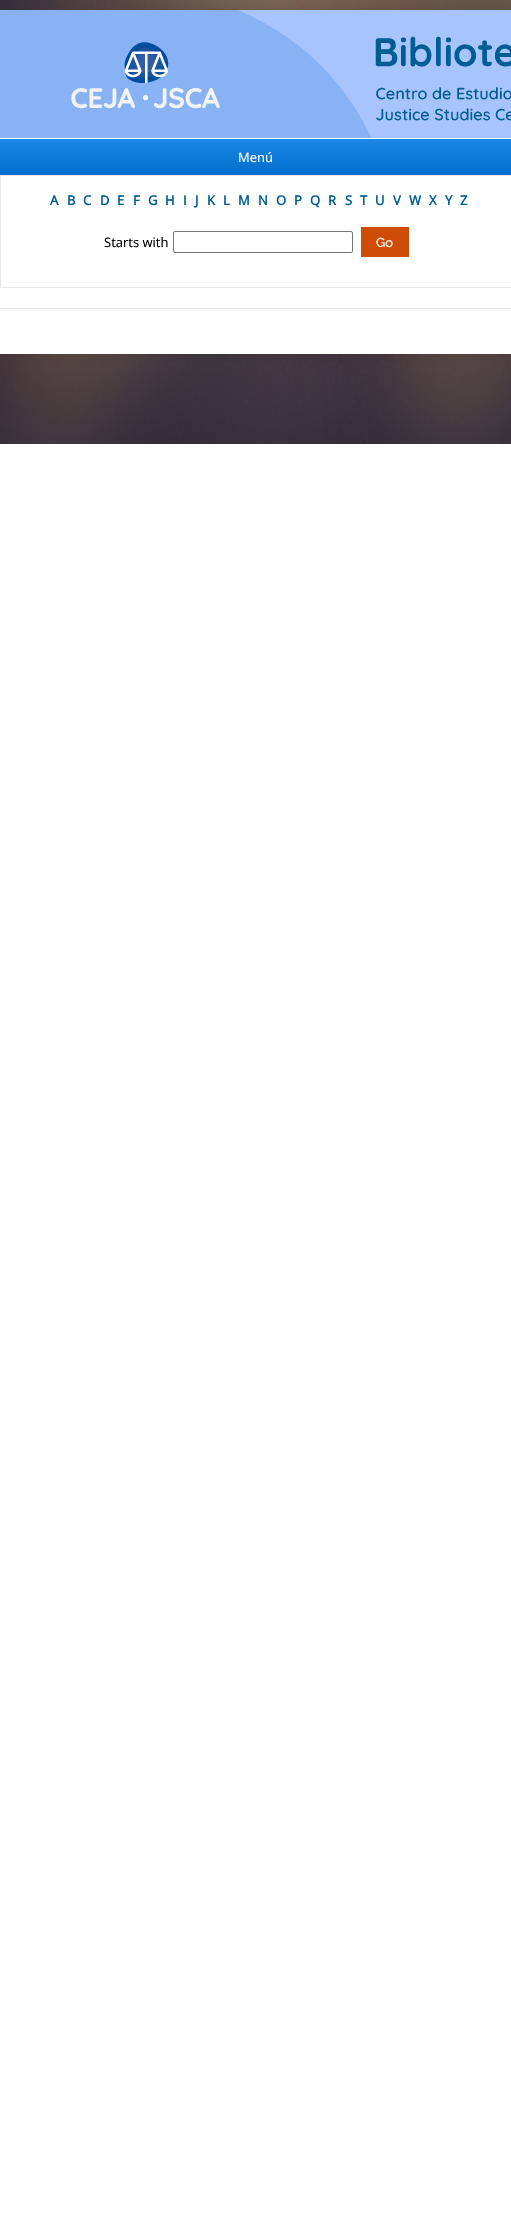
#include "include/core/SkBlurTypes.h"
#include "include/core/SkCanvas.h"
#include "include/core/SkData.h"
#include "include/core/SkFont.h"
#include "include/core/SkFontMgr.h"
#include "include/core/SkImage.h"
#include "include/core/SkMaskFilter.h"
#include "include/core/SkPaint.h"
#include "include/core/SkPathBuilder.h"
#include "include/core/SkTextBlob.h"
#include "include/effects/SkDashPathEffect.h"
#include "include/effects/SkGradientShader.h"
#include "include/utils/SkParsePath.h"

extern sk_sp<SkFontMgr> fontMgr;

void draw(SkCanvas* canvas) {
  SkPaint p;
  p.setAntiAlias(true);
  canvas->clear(SK_ColorWHITE);
  canvas->drawImageRect(SkImages::DeferredFromEncodedData(SkData::MakeFromFileName("images/1.png")), SkRect::MakeLTRB(0, 0, 511, 444), SkSamplingOptions());
  p.setColor(SkColorSetARGB(31, 0, 0, 0));
  p.setMaskFilter(SkMaskFilter::MakeBlur(kNormal_SkBlurStyle, 5));
  canvas->drawRect(SkRect::MakeLTRB(0, 10, 511, 354), p);
  p.setMaskFilter(nullptr);
  p.setColor(SK_ColorWHITE);
  canvas->drawRect(SkRect::MakeLTRB(0, 138, 511, 354), p);
  canvas->drawImageRect(SkImages::DeferredFromEncodedData(SkData::MakeFromFileName("images/2.png")), SkRect::MakeLTRB(0, 10, 511, 138), SkSamplingOptions());
  {
    const SkColor colors[] = {SkColorSetRGB(26, 135, 228), SkColorSetRGB(1, 110, 203)};
    const float stops[] = {0, 1};
    const SkPoint ends[] = {{256, 139}, {256, 175}};
    p.setShader(SkGradientShader::MakeLinear(ends, colors, stops, 2, SkTileMode::kClamp));
    p.setAlpha(255);
  }
  canvas->drawRect(SkRect::MakeLTRB(0, 139, 511, 175), p);
  p.setStyle(SkPaint::kStroke_Style);
  p.setStrokeWidth(1);
  p.setShader(nullptr);
  p.setColor(SkColorSetRGB(232, 232, 232));
  canvas->drawRect(SkRect::MakeLTRB(0.5f, 175.5f, 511.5f, 287.5f), p);
  p.setColor(SkColorSetRGB(118, 118, 118));
  canvas->drawRoundRect(SkRect::MakeLTRB(173.5f, 231.5f, 352.5f, 252.5f), 1.5f, 1.5f, p);
  p.setStyle(SkPaint::kFill_Style);
  p.setColor(SkColorSetRGB(207, 76, 6));
  canvas->drawRect(SkRect::MakeLTRB(361, 227, 409, 257), p);
  p.setColor(SkColorSetRGB(232, 232, 232));
  canvas->drawRect(SkRect::MakeLTRB(0, 308, 511, 309), p);
  SkFont font1(fontMgr->matchFamilyStyle("Open Sans", SkFontStyle::Normal()), 13);
  font1.setSubpixel(true);
  p.setColor(SK_ColorWHITE);
  canvas->drawString("Menú", 238, 162, font1, p);
  SkFont font2(fontMgr->matchFamilyStyle("Open Sans", SkFontStyle::Bold()), 13);
  font2.setSubpixel(true);
  p.setColor(SkColorSetRGB(0, 93, 145));
  canvas->drawString("A", 50, 205, font2, p);
  canvas->drawString("B", 67, 205, font2, p);
  canvas->drawString("C", 83, 205, font2, p);
  canvas->drawString("D", 100, 205, font2, p);
  canvas->drawString("E", 117, 205, font2, p);
  canvas->drawString("F", 133, 205, font2, p);
  canvas->drawString("G", 148, 205, font2, p);
  canvas->drawString("H", 165, 205, font2, p);
  canvas->drawString("I", 183, 205, font2, p);
  canvas->drawString("J", 195, 205, font2, p);
  canvas->drawString("K", 207, 205, font2, p);
  canvas->drawString("L", 223, 205, font2, p);
  canvas->drawString("M", 238, 205, font2, p);
  canvas->drawString("N", 258, 205, font2, p);
  canvas->drawString("O", 276, 205, font2, p);
  canvas->drawString("P", 294, 205, font2, p);
  canvas->drawString("Q", 310, 205, font2, p);
  canvas->drawString("R", 328, 205, font2, p);
  canvas->drawString("S", 345, 205, font2, p);
  canvas->drawString("T", 360, 205, font2, p);
  canvas->drawString("U", 375, 205, font2, p);
  canvas->drawString("V", 393, 205, font2, p);
  canvas->drawString("W", 409, 205, font2, p);
  canvas->drawString("X", 429, 205, font2, p);
  canvas->drawString("Y", 445, 205, font2, p);
  canvas->drawString("Z", 460, 205, font2, p);
  p.setColor(SK_ColorBLACK);
  canvas->drawString("Starts with", 104, 247, font1, p);
  SkFont font3(fontMgr->matchFamilyStyle("Raleway", SkFontStyle(500, SkFontStyle::kNormal_Width, SkFontStyle::kUpright_Slant)), 13);
  font3.setSubpixel(true);
  p.setColor(SK_ColorWHITE);
  canvas->drawString("Go", 376, 247, font3, p);
}
